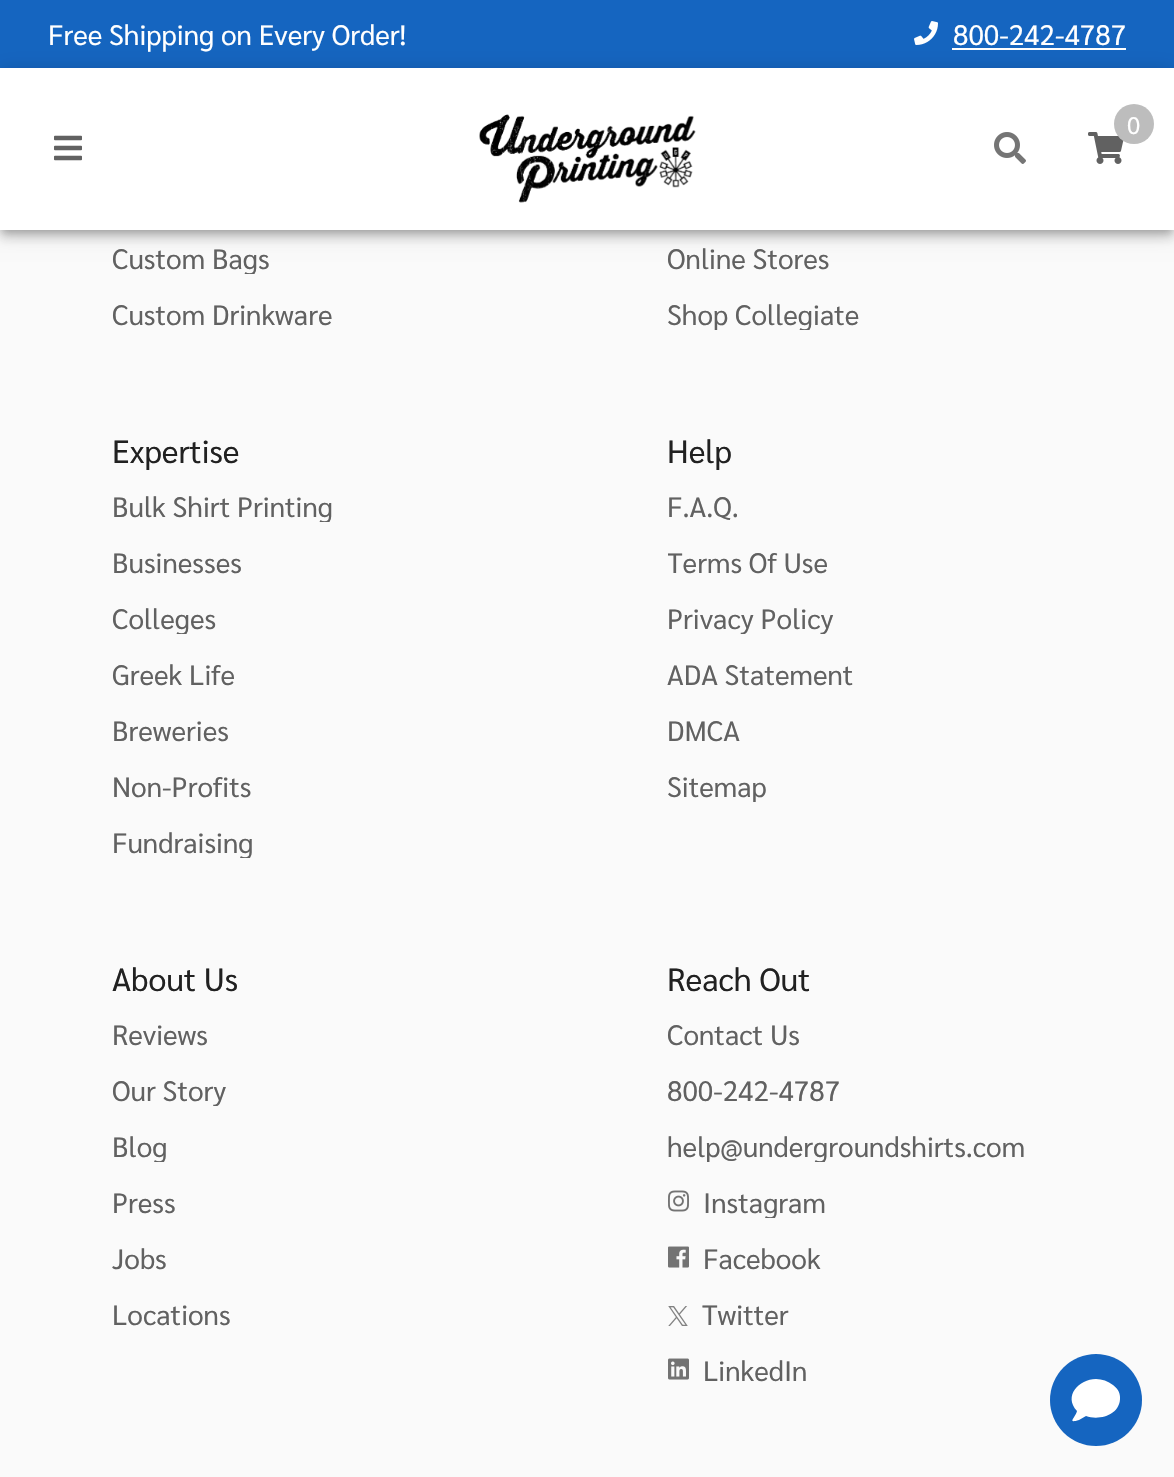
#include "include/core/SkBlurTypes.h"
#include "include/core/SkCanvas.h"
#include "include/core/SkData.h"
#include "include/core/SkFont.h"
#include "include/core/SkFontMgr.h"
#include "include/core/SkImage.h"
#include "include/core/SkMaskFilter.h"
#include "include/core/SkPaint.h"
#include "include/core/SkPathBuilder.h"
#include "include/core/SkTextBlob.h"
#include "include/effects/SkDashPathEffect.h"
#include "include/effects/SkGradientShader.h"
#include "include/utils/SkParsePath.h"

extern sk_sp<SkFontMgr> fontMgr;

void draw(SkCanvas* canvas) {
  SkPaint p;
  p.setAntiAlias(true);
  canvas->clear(SkColorSetRGB(250, 250, 250));
  p.setColor(SkColorSetRGB(21, 101, 192));
  canvas->drawRect(SkRect::MakeLTRB(0, 0, 1174, 68), p);
  canvas->drawImageRect(SkImages::DeferredFromEncodedData(SkData::MakeFromFileName("images/1.png")), SkRect::MakeLTRB(914, 21, 938, 45), SkSamplingOptions());
  p.setColor(SK_ColorWHITE);
  canvas->drawRect(SkRect::MakeLTRB(952, 48, 1126, 50), p);
  p.setColor(SkColorSetARGB(31, 0, 0, 0));
  p.setMaskFilter(SkMaskFilter::MakeBlur(kNormal_SkBlurStyle, 10));
  canvas->drawRect(SkRect::MakeLTRB(0, 70, 1174, 232), p);
  p.setMaskFilter(nullptr);
  p.setColor(SkColorSetARGB(36, 0, 0, 0));
  p.setMaskFilter(SkMaskFilter::MakeBlur(kNormal_SkBlurStyle, 5));
  canvas->drawRect(SkRect::MakeLTRB(0, 76, 1174, 238), p);
  p.setMaskFilter(nullptr);
  p.setColor(SkColorSetARGB(51, 0, 0, 0));
  p.setMaskFilter(SkMaskFilter::MakeBlur(kNormal_SkBlurStyle, 4));
  canvas->drawRect(SkRect::MakeLTRB(2, 74, 1172, 232), p);
  p.setMaskFilter(nullptr);
  p.setColor(SK_ColorWHITE);
  canvas->drawRect(SkRect::MakeLTRB(0, 68, 1174, 230), p);
  canvas->drawImageRect(SkImages::DeferredFromEncodedData(SkData::MakeFromFileName("images/2.png")), SkRect::MakeLTRB(479, 114, 696, 203), SkSamplingOptions());
  canvas->drawImageRect(SkImages::DeferredFromEncodedData(SkData::MakeFromFileName("images/3.png")), SkRect::MakeLTRB(1088, 132, 1124, 164), SkSamplingOptions());
  p.setColor(SkColorSetRGB(189, 189, 189));
  canvas->drawCircle(1134, 124, 20, p);
  canvas->drawImageRect(SkImages::DeferredFromEncodedData(SkData::MakeFromFileName("images/4.png")), SkRect::MakeLTRB(54, 135, 82, 161), SkSamplingOptions());
  canvas->drawImageRect(SkImages::DeferredFromEncodedData(SkData::MakeFromFileName("images/5.png")), SkRect::MakeLTRB(994, 132, 1026, 164), SkSamplingOptions());
  canvas->drawImageRect(SkImages::DeferredFromEncodedData(SkData::MakeFromFileName("images/6.png")), SkRect::MakeLTRB(668, 1190, 689, 1212), SkSamplingOptions());
  canvas->drawImageRect(SkImages::DeferredFromEncodedData(SkData::MakeFromFileName("images/7.png")), SkRect::MakeLTRB(668, 1246, 689, 1268), SkSamplingOptions());
  canvas->drawImageRect(SkImages::DeferredFromEncodedData(SkData::MakeFromFileName("images/8.png")), SkRect::MakeLTRB(668, 1306, 688, 1326), SkSamplingOptions());
  canvas->drawImageRect(SkImages::DeferredFromEncodedData(SkData::MakeFromFileName("images/9.png")), SkRect::MakeLTRB(668, 1358, 689, 1380), SkSamplingOptions());
  p.setColor(SkColorSetRGB(21, 101, 192));
  canvas->drawCircle(1096, 1400, 46, p);
  p.setColor(SK_ColorWHITE);
  canvas->drawPath(SkPathBuilder().moveTo(1096, 1379).cubicTo(1079, 1379, 1063, 1396, 1077, 1411).cubicTo(1076, 1417, 1066, 1424, 1079, 1420).lineTo(1086, 1416).cubicTo(1099, 1421, 1121, 1415, 1120, 1397).cubicTo(1120, 1392, 1117, 1388, 1113, 1385).cubicTo(1108, 1381, 1102, 1379, 1096, 1379).close().detach(), p);
  SkFont font1(fontMgr->matchFamilyStyle("Sarabun", SkFontStyle::Normal()), 28);
  font1.setSubpixel(true);
  canvas->drawString("Free Shipping on Every Order!", 48, 45, font1, p);
  canvas->drawString("800-242-4787", 953, 45, font1, p);
  SkFont font2(fontMgr->matchFamilyStyle("Sarabun", SkFontStyle::Normal()), 24);
  font2.setSubpixel(true);
  canvas->drawString("0", 1127, 134, font2, p);
  canvas->save();
  canvas->clipRect(SkRect::MakeLTRB(112, 242, 556, 274));
  p.setColor(SkColorSetRGB(97, 97, 97));
  canvas->drawString("Custom Bags", 112, 269, font1, p);
  canvas->restore();
  canvas->drawString("Custom Drinkware", 112, 325, font1, p);
  canvas->drawString("Online Stores", 667, 269, font1, p);
  canvas->save();
  canvas->clipRect(SkRect::MakeLTRB(668, 298, 1110, 330));
  canvas->drawString("Shop Collegiate", 667, 325, font1, p);
  canvas->restore();
  canvas->save();
  canvas->clipRect(SkRect::MakeLTRB(112, 430, 556, 470));
  SkFont font3(fontMgr->matchFamilyStyle("Sarabun", SkFontStyle::Normal()), 32);
  font3.setSubpixel(true);
  p.setColor(SkColorSetRGB(33, 33, 33));
  canvas->drawString("Expertise", 112, 463, font3, p);
  canvas->restore();
  canvas->save();
  canvas->clipRect(SkRect::MakeLTRB(112, 490, 556, 522));
  p.setColor(SkColorSetRGB(97, 97, 97));
  canvas->drawString("Bulk Shirt Printing", 112, 517, font1, p);
  canvas->restore();
  canvas->drawString("Businesses", 112, 573, font1, p);
  canvas->save();
  canvas->clipRect(SkRect::MakeLTRB(112, 602, 556, 634));
  canvas->drawString("Colleges", 112, 629, font1, p);
  canvas->restore();
  canvas->drawString("Greek Life", 112, 685, font1, p);
  canvas->drawString("Breweries", 112, 741, font1, p);
  canvas->drawString("Non-Profits", 112, 797, font1, p);
  canvas->save();
  canvas->clipRect(SkRect::MakeLTRB(112, 826, 556, 858));
  canvas->drawString("Fundraising", 112, 853, font1, p);
  canvas->restore();
  canvas->save();
  canvas->clipRect(SkRect::MakeLTRB(668, 430, 1110, 470));
  p.setColor(SkColorSetRGB(33, 33, 33));
  canvas->drawString("Help", 667, 463, font3, p);
  canvas->restore();
  p.setColor(SkColorSetRGB(97, 97, 97));
  canvas->drawString("F.A.Q.", 667, 517, font1, p);
  canvas->save();
  canvas->clipRect(SkRect::MakeLTRB(668, 546, 1110, 578));
  canvas->drawString("Terms Of Use", 667, 573, font1, p);
  canvas->restore();
  canvas->save();
  canvas->clipRect(SkRect::MakeLTRB(668, 602, 1110, 634));
  canvas->drawString("Privacy Policy", 667, 629, font1, p);
  canvas->restore();
  canvas->drawString("ADA Statement", 667, 685, font1, p);
  canvas->drawString("DMCA", 667, 741, font1, p);
  canvas->save();
  canvas->clipRect(SkRect::MakeLTRB(668, 770, 1110, 802));
  canvas->drawString("Sitemap", 667, 797, font1, p);
  canvas->restore();
  p.setColor(SkColorSetRGB(33, 33, 33));
  canvas->drawString("About Us", 112, 991, font3, p);
  p.setColor(SkColorSetRGB(97, 97, 97));
  canvas->drawString("Reviews", 112, 1045, font1, p);
  canvas->save();
  canvas->clipRect(SkRect::MakeLTRB(112, 1074, 556, 1106));
  canvas->drawString("Our Story", 112, 1101, font1, p);
  canvas->restore();
  canvas->save();
  canvas->clipRect(SkRect::MakeLTRB(112, 1130, 556, 1162));
  canvas->drawString("Blog", 112, 1157, font1, p);
  canvas->restore();
  canvas->drawString("Press", 112, 1213, font1, p);
  canvas->drawString("Jobs", 112, 1269, font1, p);
  canvas->drawString("Locations", 112, 1325, font1, p);
  p.setColor(SkColorSetRGB(33, 33, 33));
  canvas->drawString("Reach Out", 667, 991, font3, p);
  p.setColor(SkColorSetRGB(97, 97, 97));
  canvas->drawString("Contact Us", 667, 1045, font1, p);
  canvas->drawString("800-242-4787", 667, 1101, font1, p);
  canvas->save();
  canvas->clipRect(SkRect::MakeLTRB(668, 1130, 1110, 1162));
  canvas->drawString("help@undergroundshirts.com", 667, 1157, font1, p);
  canvas->restore();
  canvas->save();
  canvas->clipRect(SkRect::MakeLTRB(668, 1186, 1110, 1218));
  canvas->drawString("Instagram", 703, 1213, font1, p);
  canvas->restore();
  canvas->drawString("Facebook", 703, 1269, font1, p);
  canvas->drawString("Twitter", 702, 1325, font1, p);
  canvas->drawString("LinkedIn", 703, 1381, font1, p);
}
